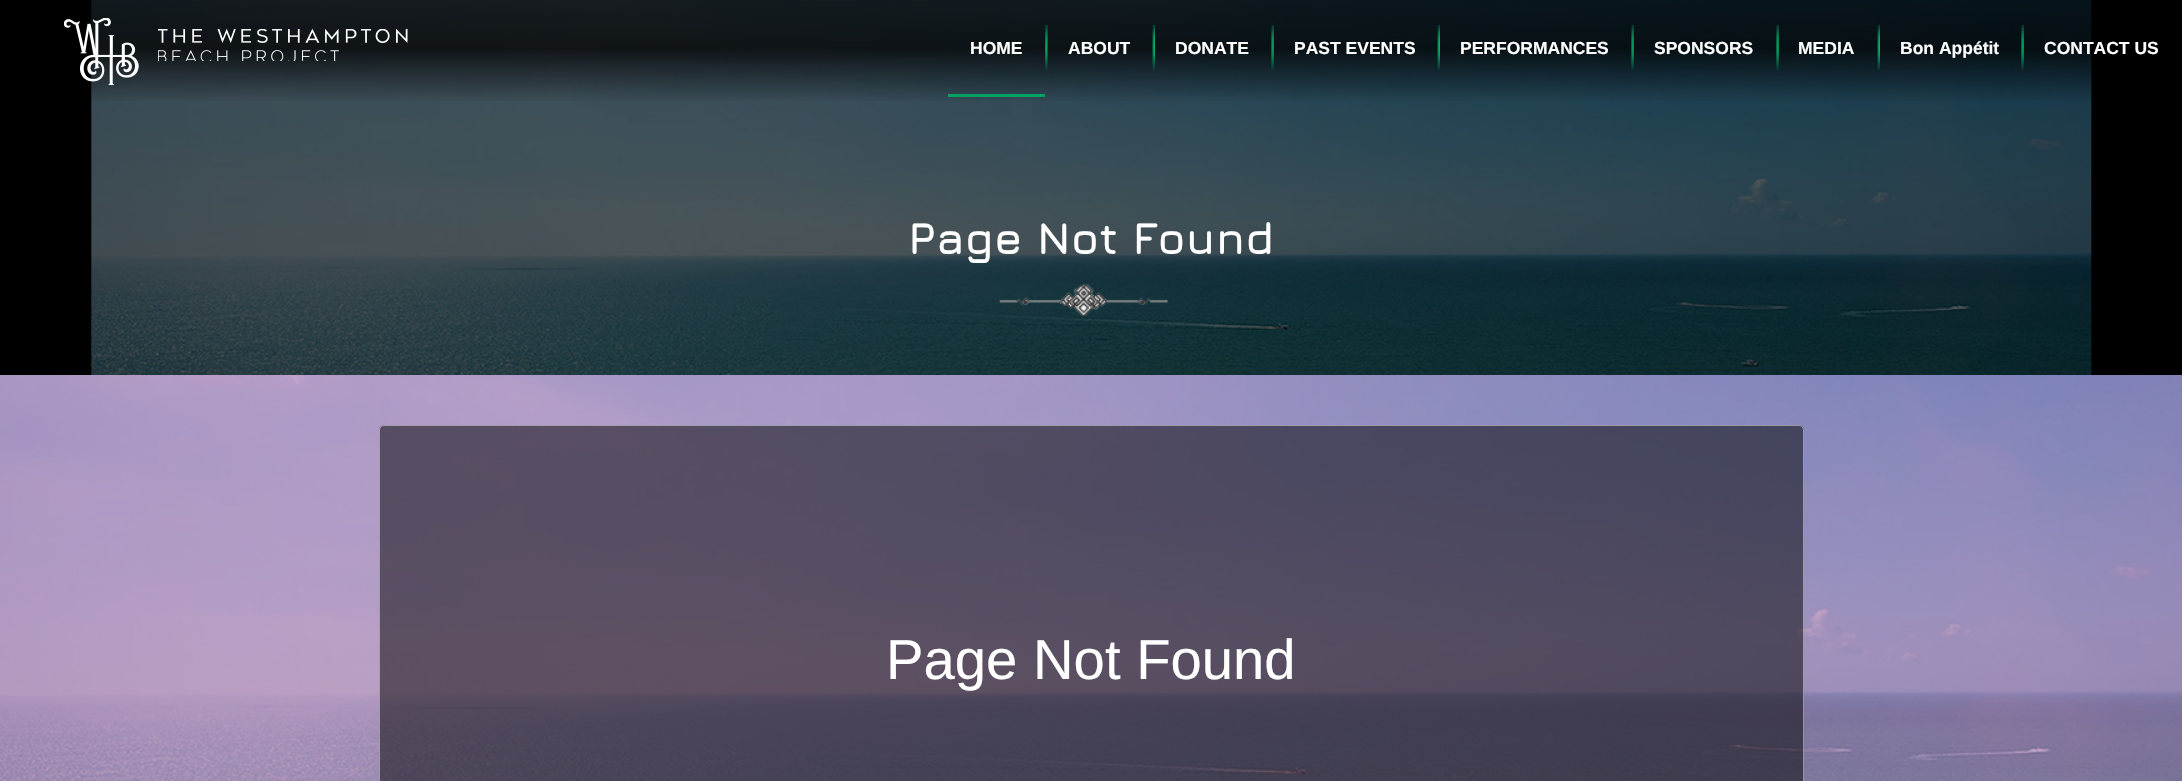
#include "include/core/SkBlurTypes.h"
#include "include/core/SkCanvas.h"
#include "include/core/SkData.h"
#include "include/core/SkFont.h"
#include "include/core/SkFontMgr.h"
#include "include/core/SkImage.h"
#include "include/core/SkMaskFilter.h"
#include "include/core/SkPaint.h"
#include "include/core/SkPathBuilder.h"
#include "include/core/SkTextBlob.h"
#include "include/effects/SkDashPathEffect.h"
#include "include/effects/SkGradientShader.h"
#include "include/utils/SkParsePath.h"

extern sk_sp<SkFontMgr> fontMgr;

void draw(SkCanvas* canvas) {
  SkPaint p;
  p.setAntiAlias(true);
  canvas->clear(SK_ColorBLACK);
  canvas->drawImageRect(SkImages::DeferredFromEncodedData(SkData::MakeFromFileName("images/11.png")), SkRect::MakeLTRB(91, 0, 2092, 375), SkSamplingOptions());
  {
    const SkColor colors[] = {SkColorSetARGB(166, 0, 0, 0), SkColorSetARGB(191, 0, 0, 0), SkColorSetARGB(0, 0, 0, 0)};
    const float stops[] = {0, 0.47f, 1};
    const SkPoint ends[] = {{1091, 0}, {1091, 103}};
    p.setShader(SkGradientShader::MakeLinear(ends, colors, stops, 3, SkTileMode::kClamp));
    p.setAlpha(255);
  }
  canvas->drawRect(SkRect::MakeLTRB(91, 0, 2092, 101), p);
  canvas->drawImageRect(SkImages::DeferredFromEncodedData(SkData::MakeFromFileName("images/1.png")), SkRect::MakeLTRB(64, 18, 139, 85), SkSamplingOptions());
  canvas->drawImageRect(SkImages::DeferredFromEncodedData(SkData::MakeFromFileName("images/2.png")), SkRect::MakeLTRB(158, 29, 408, 61), SkSamplingOptions());
  p.setShader(nullptr);
  p.setColor(SkColorSetRGB(0, 162, 97));
  canvas->drawRect(SkRect::MakeLTRB(948, 94, 1045, 97), p);
  canvas->drawImageRect(SkImages::DeferredFromEncodedData(SkData::MakeFromFileName("images/3.png")), SkRect::MakeLTRB(1045, 25, 1048, 70), SkSamplingOptions());
  canvas->drawImageRect(SkImages::DeferredFromEncodedData(SkData::MakeFromFileName("images/4.png")), SkRect::MakeLTRB(1152, 25, 1155, 70), SkSamplingOptions());
  canvas->drawImageRect(SkImages::DeferredFromEncodedData(SkData::MakeFromFileName("images/5.png")), SkRect::MakeLTRB(1271, 25, 1274, 70), SkSamplingOptions());
  canvas->drawImageRect(SkImages::DeferredFromEncodedData(SkData::MakeFromFileName("images/6.png")), SkRect::MakeLTRB(1437, 25, 1440, 70), SkSamplingOptions());
  canvas->drawImageRect(SkImages::DeferredFromEncodedData(SkData::MakeFromFileName("images/7.png")), SkRect::MakeLTRB(1631, 25, 1634, 70), SkSamplingOptions());
  canvas->drawImageRect(SkImages::DeferredFromEncodedData(SkData::MakeFromFileName("images/8.png")), SkRect::MakeLTRB(1776, 25, 1779, 70), SkSamplingOptions());
  canvas->drawImageRect(SkImages::DeferredFromEncodedData(SkData::MakeFromFileName("images/9.png")), SkRect::MakeLTRB(1877, 25, 1880, 70), SkSamplingOptions());
  canvas->drawImageRect(SkImages::DeferredFromEncodedData(SkData::MakeFromFileName("images/10.png")), SkRect::MakeLTRB(2021, 25, 2024, 70), SkSamplingOptions());
  canvas->drawImageRect(SkImages::DeferredFromEncodedData(SkData::MakeFromFileName("images/12.png")), SkRect::MakeLTRB(998, 283, 1168, 317), SkSamplingOptions());
  p.setColor(SkColorSetRGB(194, 129, 183));
  canvas->drawRect(SkRect::MakeLTRB(0, 375, 2182, 781), p);
  canvas->drawImageRect(SkImages::DeferredFromEncodedData(SkData::MakeFromFileName("images/13.png")), SkRect::MakeLTRB(0, 375, 2182, 781), SkSamplingOptions());
  p.setColor(SkColorSetARGB(128, 0, 0, 0));
  canvas->drawRoundRect(SkRect::MakeLTRB(379, 425, 1804, 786), 5, 5, p);
  p.setStyle(SkPaint::kStroke_Style);
  p.setStrokeWidth(1);
  p.setColor(SkColorSetARGB(115, 255, 255, 255));
  canvas->drawRoundRect(SkRect::MakeLTRB(379.5f, 425.5f, 1803.5f, 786.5f), 4.5f, 4.5f, p);
  SkFont font1(fontMgr->matchFamilyStyle("Liberation Sans", SkFontStyle::Bold()), 17.5f);
  font1.setSubpixel(true);
  p.setStyle(SkPaint::kFill_Style);
  p.setColor(SK_ColorWHITE);
  canvas->drawString("HOME", 970, 54, font1, p);
  canvas->drawString("ABOUT", 1068, 54, font1, p);
  canvas->drawString("DONATE", 1175, 54, font1, p);
  canvas->drawString("PAST EVENTS", 1294, 54, font1, p);
  canvas->drawString("PERFORMANCES", 1460, 54, font1, p);
  canvas->drawString("SPONSORS", 1654, 54, font1, p);
  canvas->drawString("MEDIA", 1798, 54, font1, p);
  canvas->drawString("Bon Appétit", 1900, 54, font1, p);
  canvas->drawString("CONTACT US", 2044, 54, font1, p);
  SkFont font2(fontMgr->matchFamilyStyle("Jura", SkFontStyle::Bold()), 45);
  font2.setSubpixel(true);
  canvas->drawString("Page Not Found", 908, 254, font2, p);
  SkFont font3(fontMgr->matchFamilyStyle("Liberation Sans", SkFontStyle::Normal()), 56.25f);
  font3.setSubpixel(true);
  canvas->drawString("Page Not Found", 886, 679, font3, p);
}
